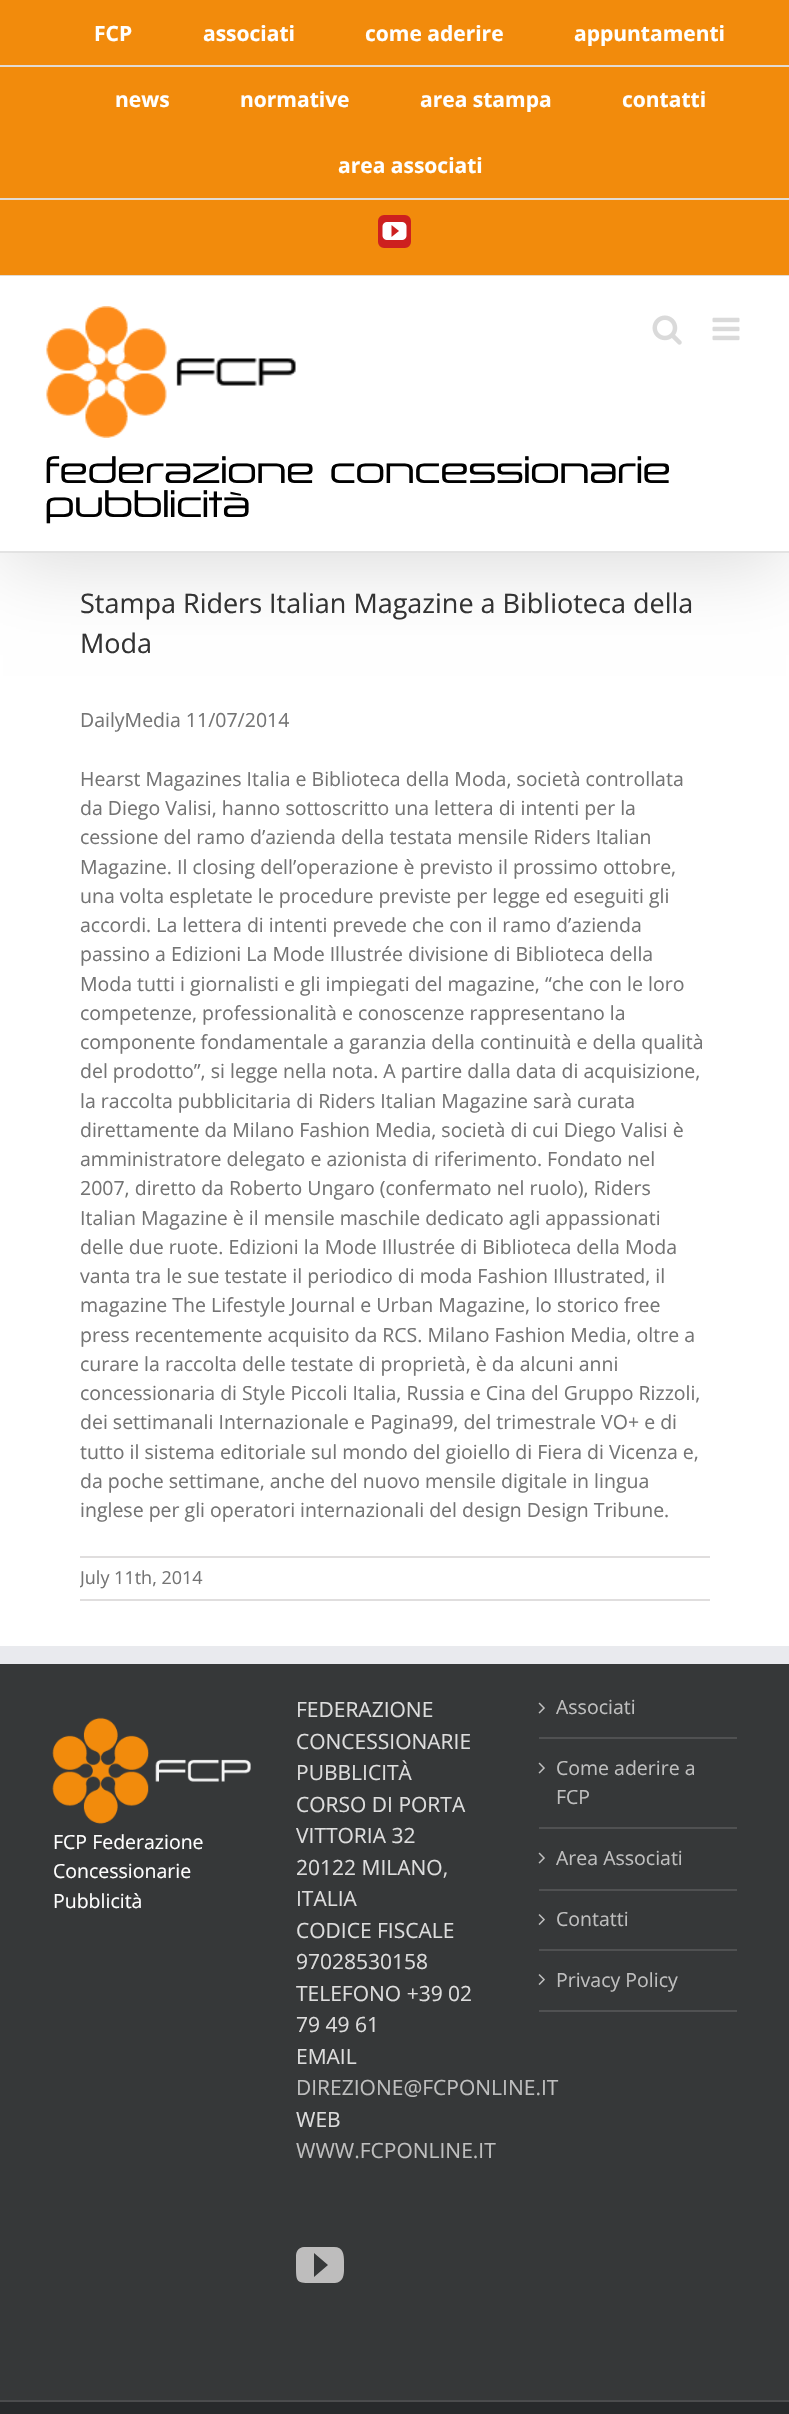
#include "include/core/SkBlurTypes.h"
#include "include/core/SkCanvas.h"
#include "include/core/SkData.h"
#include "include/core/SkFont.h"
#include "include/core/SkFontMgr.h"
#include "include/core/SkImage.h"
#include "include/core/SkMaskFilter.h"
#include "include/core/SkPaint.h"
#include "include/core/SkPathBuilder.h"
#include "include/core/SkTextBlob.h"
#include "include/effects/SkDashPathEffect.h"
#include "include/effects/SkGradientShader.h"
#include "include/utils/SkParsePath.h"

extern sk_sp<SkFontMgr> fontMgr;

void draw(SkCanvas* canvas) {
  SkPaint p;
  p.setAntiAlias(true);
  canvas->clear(SK_ColorWHITE);
  p.setColor(SkColorSetARGB(36, 0, 0, 0));
  p.setMaskFilter(SkMaskFilter::MakeBlur(kNormal_SkBlurStyle, 37.5f));
  canvas->drawRect(SkRect::MakeLTRB(3, 18, 786, 564), p);
  p.setMaskFilter(nullptr);
  p.setColor(SkColorSetRGB(242, 139, 12));
  canvas->drawRect(SkRect::MakeLTRB(0, 0, 789, 275), p);
  p.setColor(SkColorSetRGB(226, 219, 210));
  canvas->drawRect(SkRect::MakeLTRB(0, 275, 789, 276), p);
  canvas->drawRect(SkRect::MakeLTRB(0, 198, 789, 200), p);
  canvas->drawRect(SkRect::MakeLTRB(0, 65, 789, 67), p);
  p.setColor(SkColorSetRGB(205, 32, 31));
  canvas->drawRoundRect(SkRect::MakeLTRB(379, 216, 410, 247), 5, 5, p);
  p.setStyle(SkPaint::kStroke_Style);
  p.setStrokeWidth(2);
  canvas->drawRoundRect(SkRect::MakeLTRB(379, 216, 410, 247), 5, 5, p);
  canvas->drawImageRect(SkImages::DeferredFromEncodedData(SkData::MakeFromFileName("images/1.png")), SkRect::MakeLTRB(382, 222, 407, 240), SkSamplingOptions());
  p.setStyle(SkPaint::kFill_Style);
  p.setColor(SK_ColorWHITE);
  canvas->drawRect(SkRect::MakeLTRB(0, 276, 789, 552), p);
  p.setColor(SkColorSetARGB(237, 225, 225, 225));
  canvas->drawRect(SkRect::MakeLTRB(0, 551, 789, 553), p);
  canvas->drawImageRect(SkImages::DeferredFromEncodedData(SkData::MakeFromFileName("images/2.png")), SkRect::MakeLTRB(652, 315, 682, 345), SkSamplingOptions());
  canvas->drawImageRect(SkImages::DeferredFromEncodedData(SkData::MakeFromFileName("images/3.png")), SkRect::MakeLTRB(712, 317, 740, 341), SkSamplingOptions());
  canvas->drawImageRect(SkImages::DeferredFromEncodedData(SkData::MakeFromFileName("images/4.png")), SkRect::MakeLTRB(46, 306, 296, 438), SkSamplingOptions());
  p.setColor(SkColorSetRGB(224, 222, 222));
  canvas->drawRect(SkRect::MakeLTRB(80, 1556, 710, 1558), p);
  canvas->drawRect(SkRect::MakeLTRB(80, 1599, 710, 1601), p);
  p.setColor(SkColorSetRGB(54, 56, 57));
  canvas->drawRect(SkRect::MakeLTRB(0, 1664, 789, 2400), p);
  p.setColor(SkColorSetRGB(233, 234, 238));
  canvas->drawRect(SkRect::MakeLTRB(0, 1646, 789, 1664), p);
  canvas->drawImageRect(SkImages::DeferredFromEncodedData(SkData::MakeFromFileName("images/5.png")), SkRect::MakeLTRB(52, 1717, 251, 1824), SkSamplingOptions());
  canvas->save();
  canvas->clipRect(SkRect::MakeLTRB(296, 2241, 494, 2310));
  p.setColor(SkColorSetRGB(190, 189, 189));
  canvas->drawPath(SkPathBuilder().moveTo(334, 2247).lineTo(304, 2247).cubicTo(294, 2248, 296, 2258, 296, 2265).cubicTo(296, 2283, 296, 2283, 314, 2283).lineTo(335, 2283).cubicTo(345, 2282, 344, 2272, 344, 2265).cubicTo(344, 2258, 345, 2247, 334, 2247).close().moveTo(314, 2277).lineTo(314, 2253).lineTo(328, 2265).close().detach(), p);
  canvas->restore();
  p.setColor(SkColorSetRGB(80, 81, 82));
  canvas->drawRect(SkRect::MakeLTRB(539, 1737, 737, 1739), p);
  canvas->drawImageRect(SkImages::DeferredFromEncodedData(SkData::MakeFromFileName("images/6.png")), SkRect::MakeLTRB(538, 1702, 545, 1714), SkSamplingOptions());
  canvas->drawRect(SkRect::MakeLTRB(539, 1827, 737, 1829), p);
  canvas->drawImageRect(SkImages::DeferredFromEncodedData(SkData::MakeFromFileName("images/6.png")), SkRect::MakeLTRB(538, 1762, 545, 1774), SkSamplingOptions());
  canvas->drawRect(SkRect::MakeLTRB(539, 1889, 737, 1891), p);
  canvas->drawImageRect(SkImages::DeferredFromEncodedData(SkData::MakeFromFileName("images/6.png")), SkRect::MakeLTRB(538, 1852, 545, 1864), SkSamplingOptions());
  canvas->drawRect(SkRect::MakeLTRB(539, 1949, 737, 1951), p);
  canvas->drawImageRect(SkImages::DeferredFromEncodedData(SkData::MakeFromFileName("images/7.png")), SkRect::MakeLTRB(538, 1914, 545, 1925), SkSamplingOptions());
  canvas->drawRect(SkRect::MakeLTRB(539, 2010, 737, 2012), p);
  canvas->drawImageRect(SkImages::DeferredFromEncodedData(SkData::MakeFromFileName("images/7.png")), SkRect::MakeLTRB(538, 1974, 545, 1985), SkSamplingOptions());
  p.setColor(SkColorSetRGB(40, 42, 43));
  canvas->drawRect(SkRect::MakeLTRB(0, 2402, 789, 2414), p);
  p.setColor(SkColorSetRGB(75, 76, 77));
  canvas->drawRect(SkRect::MakeLTRB(0, 2400, 789, 2402), p);
  SkFont font1(fontMgr->matchFamilyStyle("Open Sans", SkFontStyle::Bold()), 21);
  font1.setSubpixel(true);
  p.setColor(SK_ColorWHITE);
  canvas->drawString("FCP", 94, 41, font1, p);
  canvas->drawString("associati", 203, 41, font1, p);
  canvas->drawString("come aderire", 365, 41, font1, p);
  canvas->drawString("appuntamenti", 574, 41, font1, p);
  canvas->drawString("news", 115, 107, font1, p);
  canvas->drawString("normative", 240, 107, font1, p);
  canvas->drawString("area stampa", 420, 107, font1, p);
  canvas->drawString("contatti", 622, 107, font1, p);
  canvas->drawString("area associati", 338, 173, font1, p);
  SkFont font2(fontMgr->matchFamilyStyle("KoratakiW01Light", SkFontStyle(300, SkFontStyle::kNormal_Width, SkFontStyle::kUpright_Slant)), 32.75f);
  font2.setSubpixel(true);
  p.setColor(SK_ColorBLACK);
  canvas->drawString("federazione concessionarie", 45, 483, font2, p);
  canvas->drawString("pubblicità", 45, 517, font2, p);
  SkFont font3(fontMgr->matchFamilyStyle("Open Sans", SkFontStyle::Normal()), 27);
  font3.setSubpixel(true);
  p.setColor(SkColorSetRGB(51, 51, 51));
  canvas->drawString("Stampa Riders Italian Magazine a Biblioteca della", 80, 613, font3, p);
  canvas->drawString("Moda", 80, 653, font3, p);
  SkFont font4(fontMgr->matchFamilyStyle("Open Sans", SkFontStyle::Normal()), 19.5f);
  font4.setSubpixel(true);
  p.setColor(SkColorSetRGB(116, 116, 116));
  canvas->drawString("DailyMedia 11/07/2014", 80, 727, font4, p);
  canvas->drawString("Hearst Magazines Italia e Biblioteca della Moda, società controllata", 80, 786, font4, p);
  canvas->drawString("da Diego Valisi, hanno sottoscritto una lettera di intenti per la", 80, 815, font4, p);
  canvas->drawString("cessione del ramo d’azienda della testata mensile Riders Italian", 80, 844, font4, p);
  canvas->drawString("Magazine. Il closing dell’operazione è previsto il prossimo ottobre,", 80, 874, font4, p);
  canvas->drawString("una volta espletate le procedure previste per legge ed eseguiti gli", 80, 903, font4, p);
  canvas->drawString("accordi. La lettera di intenti prevede che con il ramo d’azienda", 80, 932, font4, p);
  canvas->drawString("passino a Edizioni La Mode Illustrée divisione di Biblioteca della", 80, 961, font4, p);
  canvas->drawString("Moda tutti i giornalisti e gli impiegati del magazine, “che con le loro", 80, 991, font4, p);
  canvas->drawString("competenze, professionalità e conoscenze rappresentano la", 80, 1020, font4, p);
  canvas->drawString("componente fondamentale a garanzia della continuità e della qualità", 80, 1049, font4, p);
  canvas->drawString("del prodotto”, si legge nella nota. A partire dalla data di acquisizione,", 80, 1078, font4, p);
  canvas->drawString("la raccolta pubblicitaria di Riders Italian Magazine sarà curata", 80, 1108, font4, p);
  canvas->drawString("direttamente da Milano Fashion Media, società di cui Diego Valisi è", 80, 1137, font4, p);
  canvas->drawString("amministratore delegato e azionista di riferimento. Fondato nel", 80, 1166, font4, p);
  canvas->drawString("2007, diretto da Roberto Ungaro (confermato nel ruolo), Riders", 80, 1195, font4, p);
  canvas->drawString("Italian Magazine è il mensile maschile dedicato agli appassionati", 80, 1225, font4, p);
  canvas->drawString("delle due ruote. Edizioni la Mode Illustrée di Biblioteca della Moda", 80, 1254, font4, p);
  canvas->drawString("vanta tra le sue testate il periodico di moda Fashion Illustrated, il", 80, 1283, font4, p);
  canvas->drawString("magazine The Lifestyle Journal e Urban Magazine, lo storico free", 80, 1312, font4, p);
  canvas->drawString("press recentemente acquisito da RCS. Milano Fashion Media, oltre a", 80, 1342, font4, p);
  canvas->drawString("curare la raccolta delle testate di proprietà, è da alcuni anni", 80, 1371, font4, p);
  canvas->drawString("concessionaria di Style Piccoli Italia, Russia e Cina del Gruppo Rizzoli,", 80, 1400, font4, p);
  canvas->drawString("dei settimanali Internazionale e Pagina99, del trimestrale VO+ e di", 80, 1429, font4, p);
  canvas->drawString("tutto il sistema editoriale sul mondo del gioiello di Fiera di Vicenza e,", 80, 1459, font4, p);
  canvas->drawString("da poche settimane, anche del nuovo mensile digitale in lingua", 80, 1488, font4, p);
  canvas->drawString("inglese per gli operatori internazionali del design Design Tribune.", 80, 1517, font4, p);
  canvas->save();
  canvas->clipRect(SkRect::MakeLTRB(80, 1557, 710, 1599));
  SkFont font5(fontMgr->matchFamilyStyle("Open Sans", SkFontStyle::Normal()), 18);
  font5.setSubpixel(true);
  canvas->drawString("July 11th, 2014", 80, 1584, font5, p);
  canvas->restore();
  p.setColor(SK_ColorWHITE);
  canvas->drawString("FCP Federazione", 53, 1849, font4, p);
  canvas->drawString("Concessionarie", 53, 1878, font4, p);
  canvas->drawString("Pubblicità", 53, 1908, font4, p);
  SkFont font6(fontMgr->matchFamilyStyle("Open Sans", SkFontStyle::Normal()), 21);
  font6.setSubpixel(true);
  p.setColor(SkColorSetRGB(221, 221, 221));
  canvas->drawString("FEDERAZIONE", 296, 1717, font6, p);
  canvas->drawString("CONCESSIONARIE", 296, 1749, font6, p);
  canvas->drawString("PUBBLICITÀ", 296, 1780, font6, p);
  canvas->drawString("CORSO DI PORTA", 296, 1812, font6, p);
  canvas->drawString("VITTORIA 32", 296, 1843, font6, p);
  canvas->drawString("20122 MILANO,", 296, 1875, font6, p);
  canvas->drawString("ITALIA", 296, 1906, font6, p);
  canvas->drawString("CODICE FISCALE", 296, 1938, font6, p);
  canvas->drawString("97028530158", 296, 1969, font6, p);
  canvas->drawString("TELEFONO +39 02", 296, 2001, font6, p);
  canvas->drawString("79 49 61", 296, 2032, font6, p);
  canvas->drawString("EMAIL", 296, 2064, font6, p);
  p.setColor(SkColorSetRGB(191, 191, 191));
  canvas->drawString("DIREZIONE@FCPONLINE.IT", 296, 2095, font6, p);
  p.setColor(SkColorSetRGB(221, 221, 221));
  canvas->drawString("WEB", 296, 2127, font6, p);
  p.setColor(SkColorSetRGB(191, 191, 191));
  canvas->drawString("WWW.FCPONLINE.IT", 296, 2158, font6, p);
  canvas->drawString("Associati", 556, 1714, font4, p);
  canvas->drawString("Come aderire a", 556, 1775, font4, p);
  canvas->drawString("FCP", 556, 1804, font4, p);
  canvas->drawString("Area Associati", 556, 1865, font4, p);
  canvas->drawString("Contatti", 556, 1926, font4, p);
  canvas->drawString("Privacy Policy", 556, 1987, font4, p);
}
